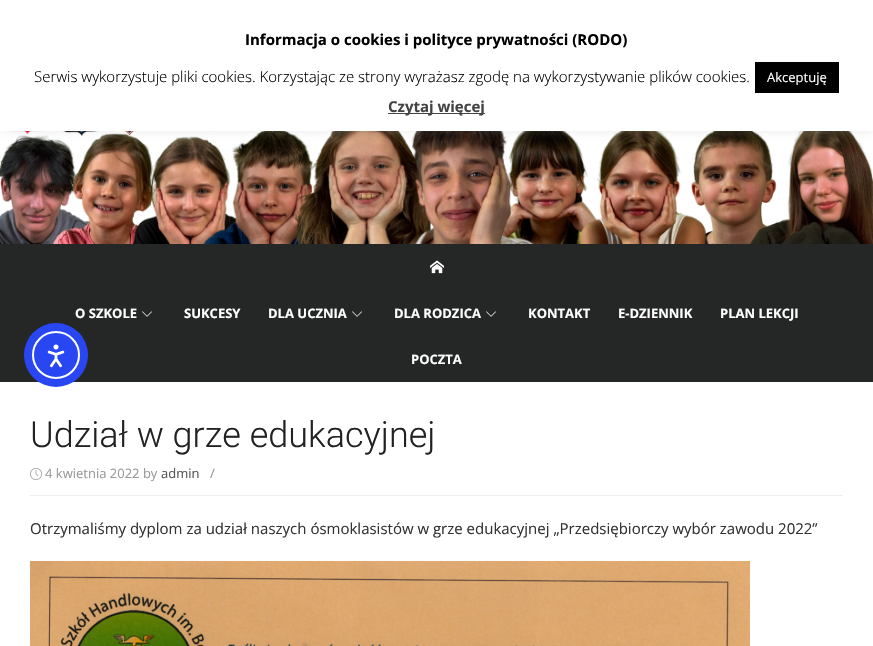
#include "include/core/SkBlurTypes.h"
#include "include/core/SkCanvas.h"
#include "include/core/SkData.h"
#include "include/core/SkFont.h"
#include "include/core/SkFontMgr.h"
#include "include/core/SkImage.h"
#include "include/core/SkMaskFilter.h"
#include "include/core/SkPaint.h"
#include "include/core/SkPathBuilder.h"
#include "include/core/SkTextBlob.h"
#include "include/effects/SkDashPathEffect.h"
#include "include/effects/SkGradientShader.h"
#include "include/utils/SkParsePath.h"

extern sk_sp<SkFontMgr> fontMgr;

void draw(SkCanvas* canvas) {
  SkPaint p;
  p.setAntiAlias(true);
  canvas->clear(SK_ColorWHITE);
  canvas->drawImageRect(SkImages::DeferredFromEncodedData(SkData::MakeFromFileName("images/1.png")), SkRect::MakeLTRB(0, 131, 873, 244), SkSamplingOptions());
  p.setColor(SkColorSetARGB(77, 172, 171, 171));
  p.setMaskFilter(SkMaskFilter::MakeBlur(kNormal_SkBlurStyle, 5));
  canvas->drawRect(SkRect::MakeLTRB(0, -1, 873, 130), p);
  p.setMaskFilter(nullptr);
  p.setColor(SK_ColorWHITE);
  canvas->drawRect(SkRect::MakeLTRB(0, 0, 873, 131), p);
  p.setColor(SK_ColorBLACK);
  canvas->drawRect(SkRect::MakeLTRB(755, 62, 839, 93), p);
  p.setColor(SkColorSetRGB(68, 68, 68));
  canvas->drawRect(SkRect::MakeLTRB(388, 113, 485, 114), p);
  p.setColor(SkColorSetRGB(37, 38, 38));
  canvas->drawRect(SkRect::MakeLTRB(0, 244, 873, 382), p);
  canvas->drawImageRect(SkImages::DeferredFromEncodedData(SkData::MakeFromFileName("images/2.png")), SkRect::MakeLTRB(430, 260, 444, 274), SkSamplingOptions());
  canvas->drawImageRect(SkImages::DeferredFromEncodedData(SkData::MakeFromFileName("images/3.png")), SkRect::MakeLTRB(142, 311, 152, 317), SkSamplingOptions());
  canvas->drawImageRect(SkImages::DeferredFromEncodedData(SkData::MakeFromFileName("images/3.png")), SkRect::MakeLTRB(352, 311, 362, 317), SkSamplingOptions());
  canvas->drawImageRect(SkImages::DeferredFromEncodedData(SkData::MakeFromFileName("images/3.png")), SkRect::MakeLTRB(486, 311, 496, 317), SkSamplingOptions());
  p.setColor(SkColorSetRGB(238, 238, 238));
  canvas->drawRect(SkRect::MakeLTRB(30, 495, 843, 496), p);
  canvas->drawImageRect(SkImages::DeferredFromEncodedData(SkData::MakeFromFileName("images/4.png")), SkRect::MakeLTRB(30, 468, 42, 480), SkSamplingOptions());
  canvas->drawImageRect(SkImages::DeferredFromEncodedData(SkData::MakeFromFileName("images/5.png")), SkRect::MakeLTRB(30, 561, 750, 646), SkSamplingOptions());
  p.setColor(SkColorSetRGB(40, 71, 243));
  canvas->drawCircle(56, 355, 32, p);
  p.setStyle(SkPaint::kStroke_Style);
  p.setStrokeWidth(2);
  p.setColor(SK_ColorWHITE);
  canvas->drawCircle(56, 355, 23, p);
  canvas->drawImageRect(SkImages::DeferredFromEncodedData(SkData::MakeFromFileName("images/6.png")), SkRect::MakeLTRB(47, 344, 65, 368), SkSamplingOptions());
  SkFont font1(fontMgr->matchFamilyStyle("Open Sans", SkFontStyle::Bold()), 15);
  font1.setSubpixel(true);
  p.setStyle(SkPaint::kFill_Style);
  p.setColor(SK_ColorBLACK);
  canvas->drawString("Informacja o cookies i polityce prywatności (RODO)", 245, 45, font1, p);
  SkFont font2(fontMgr->matchFamilyStyle("Open Sans", SkFontStyle(300, SkFontStyle::kNormal_Width, SkFontStyle::kUpright_Slant)), 15);
  font2.setSubpixel(true);
  canvas->drawString("Serwis wykorzystuje pliki cookies. Korzystając ze strony wyrażasz zgodę na wykorzystywanie plików cookies.", 34, 82, font2, p);
  SkFont font3(fontMgr->matchFamilyStyle("Open Sans", SkFontStyle::Normal()), 13);
  font3.setSubpixel(true);
  p.setColor(SK_ColorWHITE);
  canvas->drawString("Akceptuję", 767, 82, font3, p);
  p.setColor(SkColorSetRGB(68, 68, 68));
  canvas->drawString("Czytaj więcej", 388, 112, font1, p);
  SkFont font4(fontMgr->matchFamilyStyle("Open Sans", SkFontStyle::Bold()), 13);
  font4.setSubpixel(true);
  p.setColor(SK_ColorWHITE);
  canvas->drawString("O SZKOLE", 75, 318, font4, p);
  canvas->drawString("SUKCESY", 184, 318, font4, p);
  canvas->drawString("DLA UCZNIA", 268, 318, font4, p);
  canvas->drawString("DLA RODZICA", 394, 318, font4, p);
  canvas->drawString("KONTAKT", 528, 318, font4, p);
  canvas->drawString("E-DZIENNIK", 618, 318, font4, p);
  canvas->drawString("PLAN LEKCJI", 720, 318, font4, p);
  canvas->drawString("POCZTA", 411, 364, font4, p);
  SkFont font5(fontMgr->matchFamilyStyle("Roboto", SkFontStyle(300, SkFontStyle::kNormal_Width, SkFontStyle::kUpright_Slant)), 36);
  font5.setSubpixel(true);
  p.setColor(SkColorSetRGB(34, 34, 34));
  canvas->drawString("Udział w grze edukacyjnej", 30, 447, font5, p);
  p.setColor(SkColorSetRGB(153, 153, 153));
  canvas->drawString("4 kwietnia 2022 by", 45, 478, font3, p);
  p.setColor(SkColorSetRGB(85, 85, 85));
  canvas->drawString("admin", 161, 478, font3, p);
  p.setColor(SkColorSetRGB(153, 153, 153));
  canvas->drawString("/", 210, 478, font3, p);
  SkFont font6(fontMgr->matchFamilyStyle("Open Sans", SkFontStyle::Normal()), 15);
  font6.setSubpixel(true);
  p.setColor(SkColorSetRGB(51, 51, 51));
  canvas->drawString("Otrzymaliśmy dyplom za udział naszych ósmoklasistów w grze edukacyjnej „Przedsiębiorczy wybór zawodu 2022”", 30, 534, font6, p);
}
